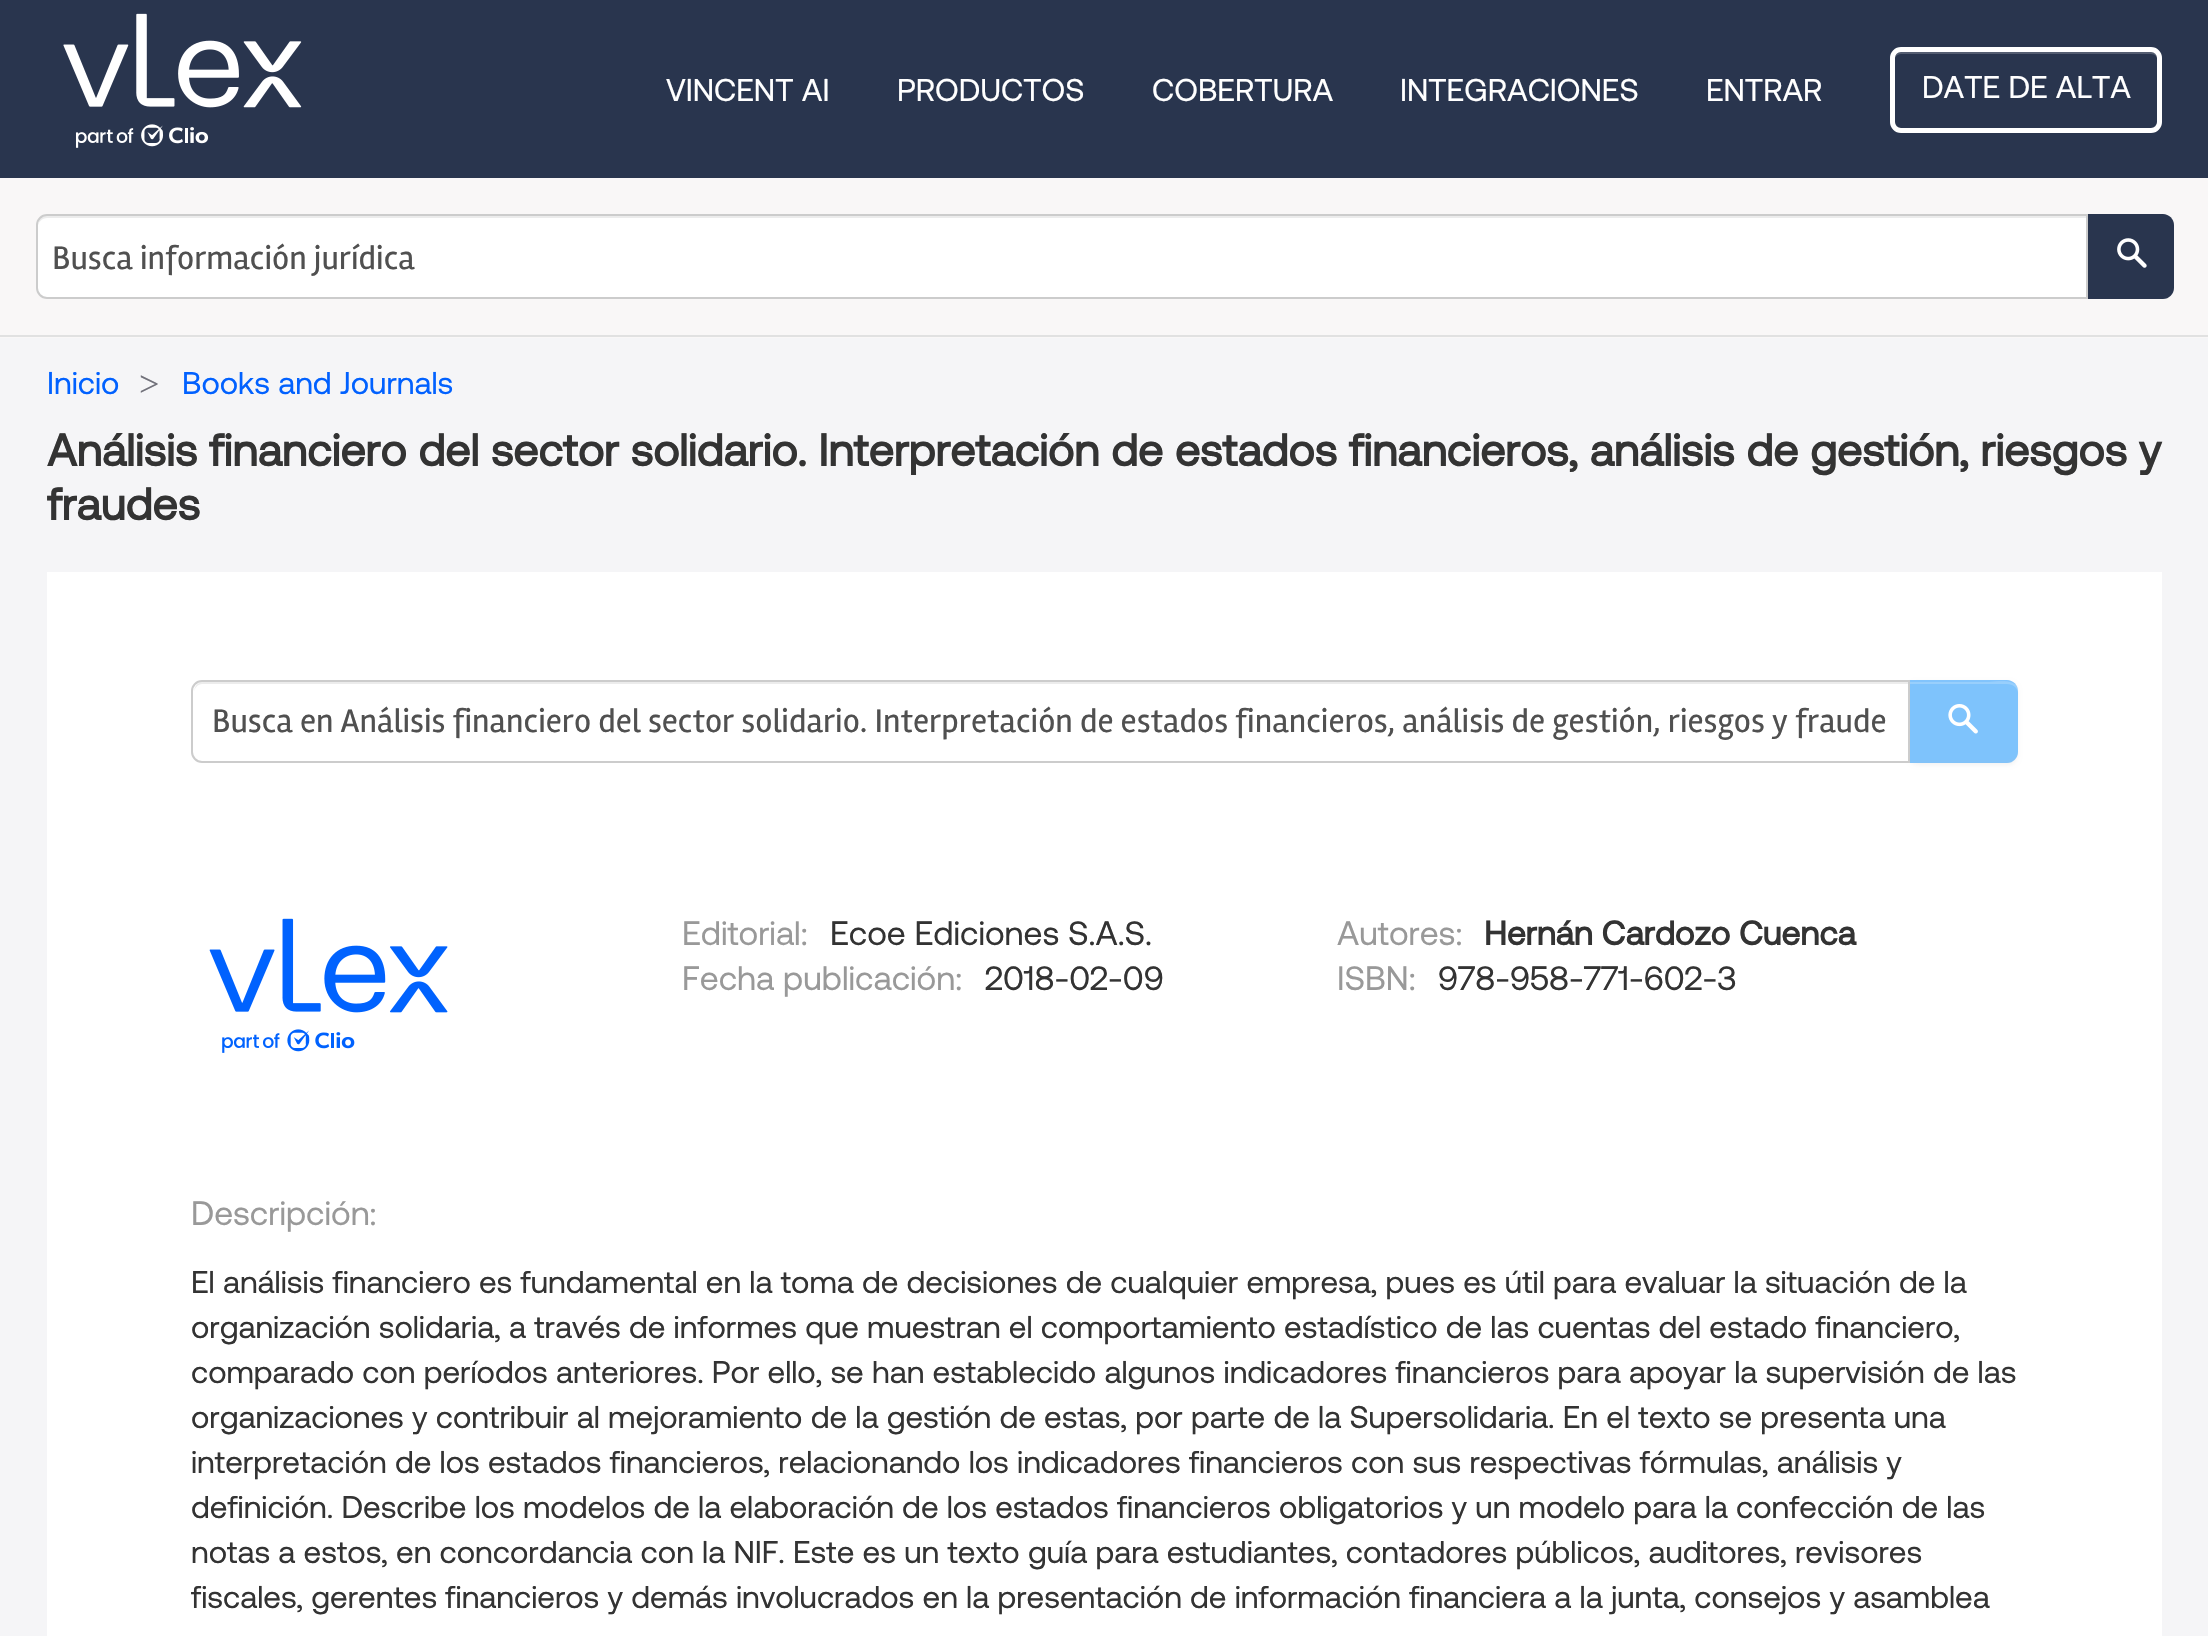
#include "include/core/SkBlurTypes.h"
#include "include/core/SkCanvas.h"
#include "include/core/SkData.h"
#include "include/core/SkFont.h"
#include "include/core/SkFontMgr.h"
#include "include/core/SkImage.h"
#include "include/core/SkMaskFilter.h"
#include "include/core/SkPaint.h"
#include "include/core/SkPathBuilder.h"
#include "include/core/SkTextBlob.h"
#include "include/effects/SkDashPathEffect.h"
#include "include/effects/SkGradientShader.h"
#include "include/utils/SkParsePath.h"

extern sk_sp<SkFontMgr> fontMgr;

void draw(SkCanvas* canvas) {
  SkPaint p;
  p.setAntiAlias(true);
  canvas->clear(SkColorSetRGB(245, 245, 247));
  p.setColor(SkColorSetRGB(41, 53, 78));
  canvas->drawRect(SkRect::MakeLTRB(0, 0, 2208, 178), p);
  canvas->drawImageRect(SkImages::DeferredFromEncodedData(SkData::MakeFromFileName("images/1.png")), SkRect::MakeLTRB(63, 13, 302, 148), SkSamplingOptions());
  p.setColor(SkColorSetRGB(84, 93, 113));
  canvas->drawPath(SkPathBuilder().moveTo(1901, 54).lineTo(2151, 54).cubicTo(2155, 54, 2158, 57, 2158, 61).lineTo(2158, 59).cubicTo(2158, 55, 2155, 52, 2151, 52).lineTo(1902, 52).cubicTo(1899, 52, 1896, 54, 1895, 57).cubicTo(1897, 55, 1899, 54, 1901, 54).close().detach(), p);
  p.setStyle(SkPaint::kStroke_Style);
  p.setStrokeWidth(5);
  p.setColor(SK_ColorWHITE);
  canvas->drawRoundRect(SkRect::MakeLTRB(1892.5f, 49.5f, 2159.5f, 130.5f), 8.5f, 8.5f, p);
  p.setStyle(SkPaint::kFill_Style);
  p.setColor(SkColorSetRGB(249, 247, 247));
  canvas->drawRect(SkRect::MakeLTRB(0, 178, 2208, 338), p);
  p.setColor(SkColorSetRGB(225, 225, 225));
  canvas->drawRect(SkRect::MakeLTRB(0, 335, 2208, 337), p);
  p.setColor(SK_ColorWHITE);
  canvas->drawPath(SkPathBuilder().moveTo(47, 214).lineTo(2088, 214).lineTo(2088, 299).lineTo(47, 299).cubicTo(41, 299, 36, 294, 36, 288).lineTo(36, 225).cubicTo(36, 219, 41, 214, 47, 214).close().detach(), p);
  p.setColor(SkColorSetRGB(236, 236, 236));
  canvas->drawPath(SkPathBuilder().moveTo(47, 218).lineTo(2086, 218).lineTo(2086, 216).lineTo(47, 216).cubicTo(41, 216, 38, 221, 38, 227).cubicTo(38, 222, 42, 218, 47, 218).close().detach(), p);
  p.setStyle(SkPaint::kStroke_Style);
  p.setStrokeWidth(2);
  p.setColor(SkColorSetRGB(204, 204, 204));
  canvas->drawPath(SkPathBuilder().moveTo(47, 215).lineTo(2087, 215).lineTo(2087, 298).lineTo(47, 298).cubicTo(41.5f, 298, 37, 293.5f, 37, 288).lineTo(37, 225).cubicTo(37, 219.5f, 41.5f, 215, 47, 215).close().detach(), p);
  p.setStyle(SkPaint::kFill_Style);
  p.setColor(SkColorSetRGB(41, 53, 78));
  canvas->drawPath(SkPathBuilder().moveTo(2088, 214).lineTo(2163, 214).cubicTo(2169, 214, 2174, 219, 2174, 225).lineTo(2174, 288).cubicTo(2174, 294, 2169, 299, 2163, 299).lineTo(2088, 299).close().detach(), p);
  canvas->drawImageRect(SkImages::DeferredFromEncodedData(SkData::MakeFromFileName("images/2.png")), SkRect::MakeLTRB(2117, 238, 2147, 268), SkSamplingOptions());
  p.setColor(SK_ColorWHITE);
  canvas->drawRect(SkRect::MakeLTRB(47, 572, 2162, 1636), p);
  p.setColor(SkColorSetARGB(13, 0, 0, 0));
  p.setMaskFilter(SkMaskFilter::MakeBlur(kNormal_SkBlurStyle, 2));
  canvas->drawRoundRect(SkRect::MakeLTRB(1908, 682, 2018, 765), 11, 11, p);
  p.setMaskFilter(nullptr);
  p.setColor(SkColorSetRGB(126, 195, 252));
  canvas->drawPath(SkPathBuilder().moveTo(1908, 680).lineTo(2007, 680).cubicTo(2013, 680, 2018, 685, 2018, 691).lineTo(2018, 752).cubicTo(2018, 758, 2013, 763, 2007, 763).lineTo(1908, 763).close().detach(), p);
  p.setColor(SkColorSetARGB(51, 255, 255, 255));
  canvas->drawPath(SkPathBuilder().moveTo(1908, 684).lineTo(2007, 684).cubicTo(2013, 684, 2018, 688, 2018, 693).lineTo(2018, 753).lineTo(2018, 689).cubicTo(2015, 678, 1996, 682, 1990, 682).lineTo(1908, 682).close().detach(), p);
  p.setColor(SkColorSetARGB(26, 168, 203, 255));
  canvas->drawPath(SkPathBuilder().moveTo(1908, 682).lineTo(2007, 682).cubicTo(2013, 682, 2018, 686, 2018, 691).cubicTo(2018, 685, 2013, 680, 2007, 680).lineTo(1908, 680).close().detach(), p);
  p.setColor(SkColorSetARGB(26, 164, 189, 219));
  canvas->drawPath(SkPathBuilder().moveTo(2009, 763).cubicTo(2014, 762, 2018, 757, 2018, 752).cubicTo(2018, 756, 2013, 760, 2007, 760).lineTo(1908, 760).lineTo(1908, 763).close().detach(), p);
  p.setColor(SK_ColorWHITE);
  canvas->drawPath(SkPathBuilder().moveTo(202, 680).lineTo(1910, 680).lineTo(1910, 763).lineTo(202, 763).cubicTo(196, 763, 191, 758, 191, 752).lineTo(191, 691).cubicTo(191, 685, 196, 680, 202, 680).close().detach(), p);
  p.setColor(SkColorSetRGB(236, 236, 236));
  canvas->drawPath(SkPathBuilder().moveTo(202, 684).lineTo(1908, 684).lineTo(1908, 682).lineTo(203, 682).cubicTo(197, 682, 194, 687, 194, 693).cubicTo(194, 688, 198, 684, 202, 684).close().detach(), p);
  p.setStyle(SkPaint::kStroke_Style);
  p.setColor(SkColorSetRGB(204, 204, 204));
  canvas->drawPath(SkPathBuilder().moveTo(202, 681).lineTo(1909, 681).lineTo(1909, 762).lineTo(202, 762).cubicTo(196.5f, 762, 192, 757.5f, 192, 752).lineTo(192, 691).cubicTo(192, 685.5f, 196.5f, 681, 202, 681).close().detach(), p);
  canvas->drawImageRect(SkImages::DeferredFromEncodedData(SkData::MakeFromFileName("images/3.png")), SkRect::MakeLTRB(1948, 704, 1978, 734), SkSamplingOptions());
  canvas->drawImageRect(SkImages::DeferredFromEncodedData(SkData::MakeFromFileName("images/4.png")), SkRect::MakeLTRB(209, 918, 448, 1053), SkSamplingOptions());
  SkFont font1(fontMgr->matchFamilyStyle("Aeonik", SkFontStyle::Normal()), 31.5f);
  font1.setSubpixel(true);
  p.setStyle(SkPaint::kFill_Style);
  p.setColor(SK_ColorWHITE);
  canvas->drawString("VINCENT AI", 666, 101, font1, p);
  canvas->drawString("PRODUCTOS", 897, 101, font1, p);
  canvas->drawString("COBERTURA", 1152, 101, font1, p);
  canvas->drawString("INTEGRACIONES", 1400, 101, font1, p);
  canvas->drawString("ENTRAR", 1706, 101, font1, p);
  canvas->drawString("DATE DE ALTA", 1922, 98, font1, p);
  SkFont font2(fontMgr->matchFamilyStyle("Rambla", SkFontStyle::Normal()), 33.75f);
  font2.setSubpixel(true);
  p.setColor(SkColorSetRGB(80, 80, 80));
  canvas->drawString("Busca información jurídica", 52, 269, font2, p);
  p.setColor(SkColorSetRGB(1, 97, 255));
  canvas->drawString("Inicio", 47, 394, font1, p);
  SkFont font3(fontMgr->matchFamilyStyle("Liberation Serif", SkFontStyle::Normal()), 36);
  font3.setSubpixel(true);
  p.setColor(SkColorSetRGB(113, 113, 122));
  canvas->drawString(">", 139, 396, font3, p);
  p.setColor(SkColorSetRGB(1, 97, 255));
  canvas->drawString("Books and Journals", 182, 394, font1, p);
  SkFont font4(fontMgr->matchFamilyStyle("Aeonik", SkFontStyle::Bold()), 45);
  font4.setSubpixel(true);
  p.setColor(SkColorSetRGB(51, 51, 51));
  canvas->drawString("Análisis financiero del sector solidario. Interpretación de estados financieros, análisis de gestión, riesgos y", 47, 466, font4, p);
  canvas->drawString("fraudes", 47, 520, font4, p);
  p.setColor(SkColorSetRGB(80, 80, 80));
  canvas->drawString("Busca en Análisis financiero del sector solidario. Interpretación de estados financieros, análisis de gestión, riesgos y fraude", 212, 732, font2, p);
  SkFont font5(fontMgr->matchFamilyStyle("Aeonik", SkFontStyle::Normal()), 33.75f);
  font5.setSubpixel(true);
  p.setColor(SkColorSetRGB(153, 153, 153));
  canvas->drawString("Editorial:", 682, 945, font5, p);
  p.setColor(SkColorSetRGB(51, 51, 51));
  canvas->drawString("Ecoe Ediciones S.A.S.", 830, 945, font5, p);
  p.setColor(SkColorSetRGB(153, 153, 153));
  canvas->drawString("Fecha publicación:", 682, 990, font5, p);
  p.setColor(SkColorSetRGB(51, 51, 51));
  canvas->drawString("2018-02-09", 985, 990, font5, p);
  p.setColor(SkColorSetRGB(153, 153, 153));
  canvas->drawString("Autores:", 1337, 945, font5, p);
  SkFont font6(fontMgr->matchFamilyStyle("Aeonik", SkFontStyle::Bold()), 33.75f);
  font6.setSubpixel(true);
  p.setColor(SkColorSetRGB(51, 51, 51));
  canvas->drawString("Hernán Cardozo Cuenca", 1484, 945, font6, p);
  p.setColor(SkColorSetRGB(153, 153, 153));
  canvas->drawString("ISBN:", 1337, 990, font5, p);
  p.setColor(SkColorSetRGB(51, 51, 51));
  canvas->drawString("978-958-771-602-3", 1438, 990, font5, p);
  p.setColor(SkColorSetRGB(153, 153, 153));
  canvas->drawString("Descripción:", 191, 1225, font5, p);
  p.setColor(SkColorSetRGB(51, 51, 51));
  canvas->drawString("El análisis financiero es fundamental en la toma de decisiones de cualquier empresa, pues es útil para evaluar la situación de la", 191, 1293, font1, p);
  canvas->drawString("organización solidaria, a través de informes que muestran el comportamiento estadístico de las cuentas del estado financiero,", 191, 1338, font1, p);
  canvas->drawString("comparado con períodos anteriores. Por ello, se han establecido algunos indicadores financieros para apoyar la supervisión de las", 191, 1383, font1, p);
  canvas->drawString("organizaciones y contribuir al mejoramiento de la gestión de estas, por parte de la Supersolidaria. En el texto se presenta una", 191, 1428, font1, p);
  canvas->drawString("interpretación de los estados financieros, relacionando los indicadores financieros con sus respectivas fórmulas, análisis y", 191, 1473, font1, p);
  canvas->drawString("definición. Describe los modelos de la elaboración de los estados financieros obligatorios y un modelo para la confección de las", 191, 1518, font1, p);
  canvas->drawString("notas a estos, en concordancia con la NIF. Este es un texto guía para estudiantes, contadores públicos, auditores, revisores", 191, 1563, font1, p);
  canvas->drawString("fiscales, gerentes financieros y demás involucrados en la presentación de información financiera a la junta, consejos y asamblea", 191, 1608, font1, p);
}
